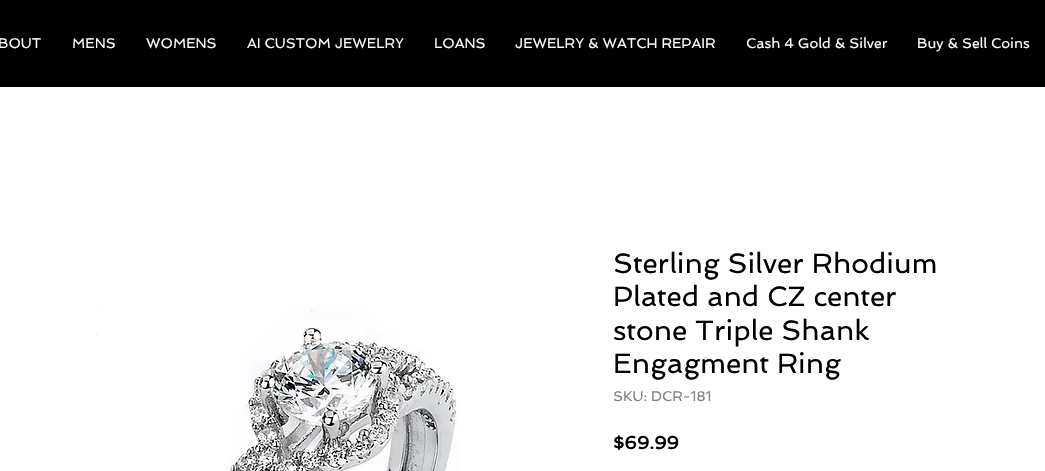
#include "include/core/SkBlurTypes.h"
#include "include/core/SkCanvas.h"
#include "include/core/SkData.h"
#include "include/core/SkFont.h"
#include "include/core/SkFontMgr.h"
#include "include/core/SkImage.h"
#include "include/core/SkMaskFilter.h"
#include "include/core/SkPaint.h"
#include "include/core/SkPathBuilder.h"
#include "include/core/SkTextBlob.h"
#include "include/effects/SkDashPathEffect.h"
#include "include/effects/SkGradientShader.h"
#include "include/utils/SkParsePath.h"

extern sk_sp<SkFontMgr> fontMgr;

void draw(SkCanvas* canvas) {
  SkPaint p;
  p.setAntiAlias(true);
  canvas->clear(SK_ColorWHITE);
  p.setColor(SK_ColorBLACK);
  canvas->drawRect(SkRect::MakeLTRB(0, 0, 1045, 87), p);
  canvas->drawImageRect(SkImages::DeferredFromEncodedData(SkData::MakeFromFileName("images/1.png")), SkRect::MakeLTRB(96, 305, 459, 471), SkSamplingOptions());
  SkFont font1(fontMgr->matchFamilyStyle("Spinnaker", SkFontStyle::Normal()), 14);
  font1.setSubpixel(true);
  p.setColor(SK_ColorWHITE);
  canvas->drawString("BOUT", -2, 48, font1, p);
  canvas->drawString("MENS", 72, 48, font1, p);
  canvas->drawString("WOMENS", 146, 48, font1, p);
  canvas->drawString("AI CUSTOM JEWELRY", 247, 48, font1, p);
  canvas->drawString("LOANS", 434, 48, font1, p);
  canvas->drawString("JEWELRY & WATCH REPAIR", 515, 48, font1, p);
  canvas->drawString("Cash 4 Gold & Silver", 746, 48, font1, p);
  canvas->drawString("Buy & Sell Coins", 917, 48, font1, p);
  SkFont font2(fontMgr->matchFamilyStyle("Spinnaker", SkFontStyle::Normal()), 28);
  font2.setSubpixel(true);
  p.setColor(SK_ColorBLACK);
  canvas->drawString("Sterling Silver Rhodium", 613, 273, font2, p);
  canvas->drawString("Plated and CZ center", 613, 306, font2, p);
  canvas->drawString("stone Triple Shank", 613, 340, font2, p);
  canvas->drawString("Engagment Ring", 613, 373, font2, p);
  p.setColor(SkColorSetRGB(128, 128, 128));
  canvas->drawString("SKU: DCR-181", 613, 401, font1, p);
  SkFont font3(fontMgr->matchFamilyStyle("Spinnaker", SkFontStyle::Bold()), 18);
  font3.setSubpixel(true);
  p.setColor(SK_ColorBLACK);
  canvas->drawString("$69.99", 613, 449, font3, p);
}
